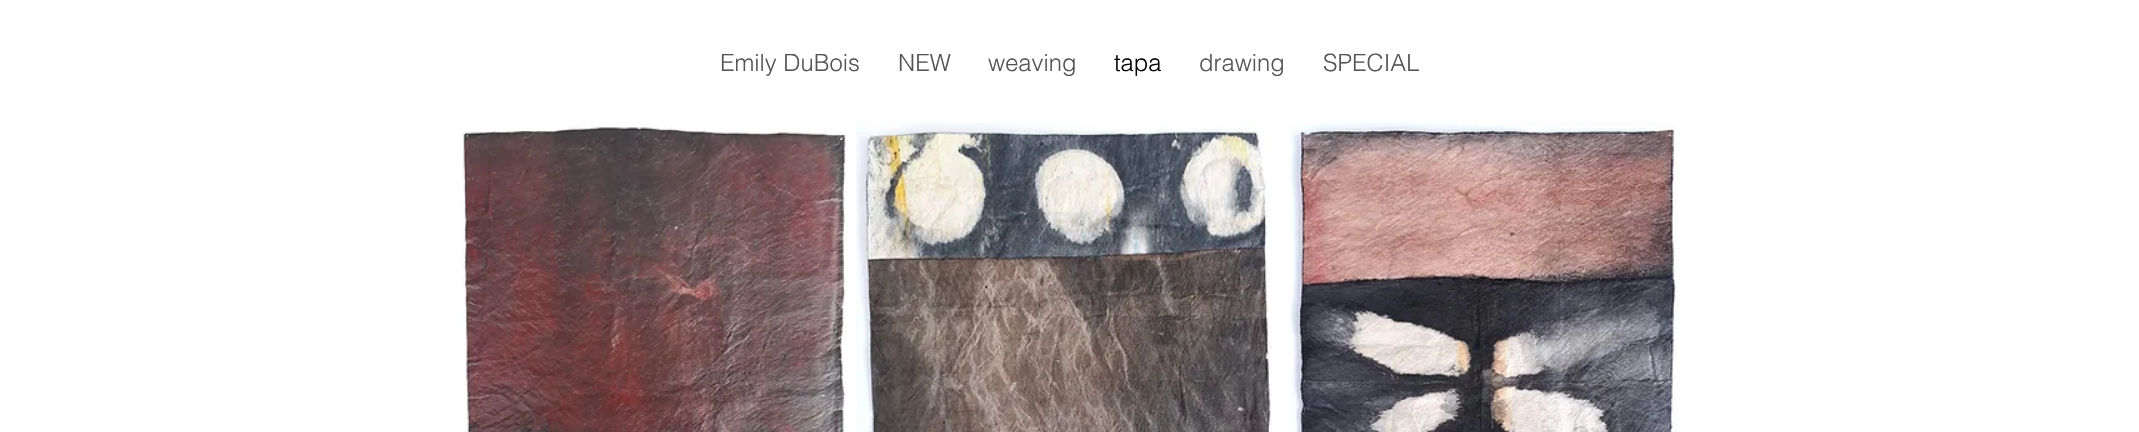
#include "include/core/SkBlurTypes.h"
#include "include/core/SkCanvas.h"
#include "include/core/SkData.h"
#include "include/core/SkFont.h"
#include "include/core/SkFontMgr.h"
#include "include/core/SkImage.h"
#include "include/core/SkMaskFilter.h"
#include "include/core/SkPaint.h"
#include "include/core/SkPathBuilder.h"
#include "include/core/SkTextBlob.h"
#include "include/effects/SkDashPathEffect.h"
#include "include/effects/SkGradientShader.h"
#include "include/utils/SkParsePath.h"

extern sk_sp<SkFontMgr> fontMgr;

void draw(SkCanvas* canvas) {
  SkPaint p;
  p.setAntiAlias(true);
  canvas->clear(SK_ColorWHITE);
  canvas->drawImageRect(SkImages::DeferredFromEncodedData(SkData::MakeFromFileName("images/1.png")), SkRect::MakeLTRB(461, 125, 847, 432), SkSamplingOptions());
  canvas->drawImageRect(SkImages::DeferredFromEncodedData(SkData::MakeFromFileName("images/2.png")), SkRect::MakeLTRB(856, 122, 1272, 432), SkSamplingOptions());
  canvas->drawImageRect(SkImages::DeferredFromEncodedData(SkData::MakeFromFileName("images/3.png")), SkRect::MakeLTRB(1289, 122, 1677, 432), SkSamplingOptions());
  SkFont font1(fontMgr->matchFamilyStyle("helvetica", SkFontStyle(300, SkFontStyle::kNormal_Width, SkFontStyle::kUpright_Slant)), 23.75f);
  font1.setSubpixel(true);
  p.setColor(SkColorSetRGB(84, 84, 84));
  canvas->drawString("Emily DuBois", 720, 71, font1, p);
  canvas->drawString("NEW", 898, 71, font1, p);
  canvas->drawString("weaving", 988, 71, font1, p);
  p.setColor(SK_ColorBLACK);
  canvas->drawString("tapa", 1114, 71, font1, p);
  p.setColor(SkColorSetRGB(84, 84, 84));
  canvas->drawString("drawing", 1199, 71, font1, p);
  canvas->drawString("SPECIAL", 1323, 71, font1, p);
}
